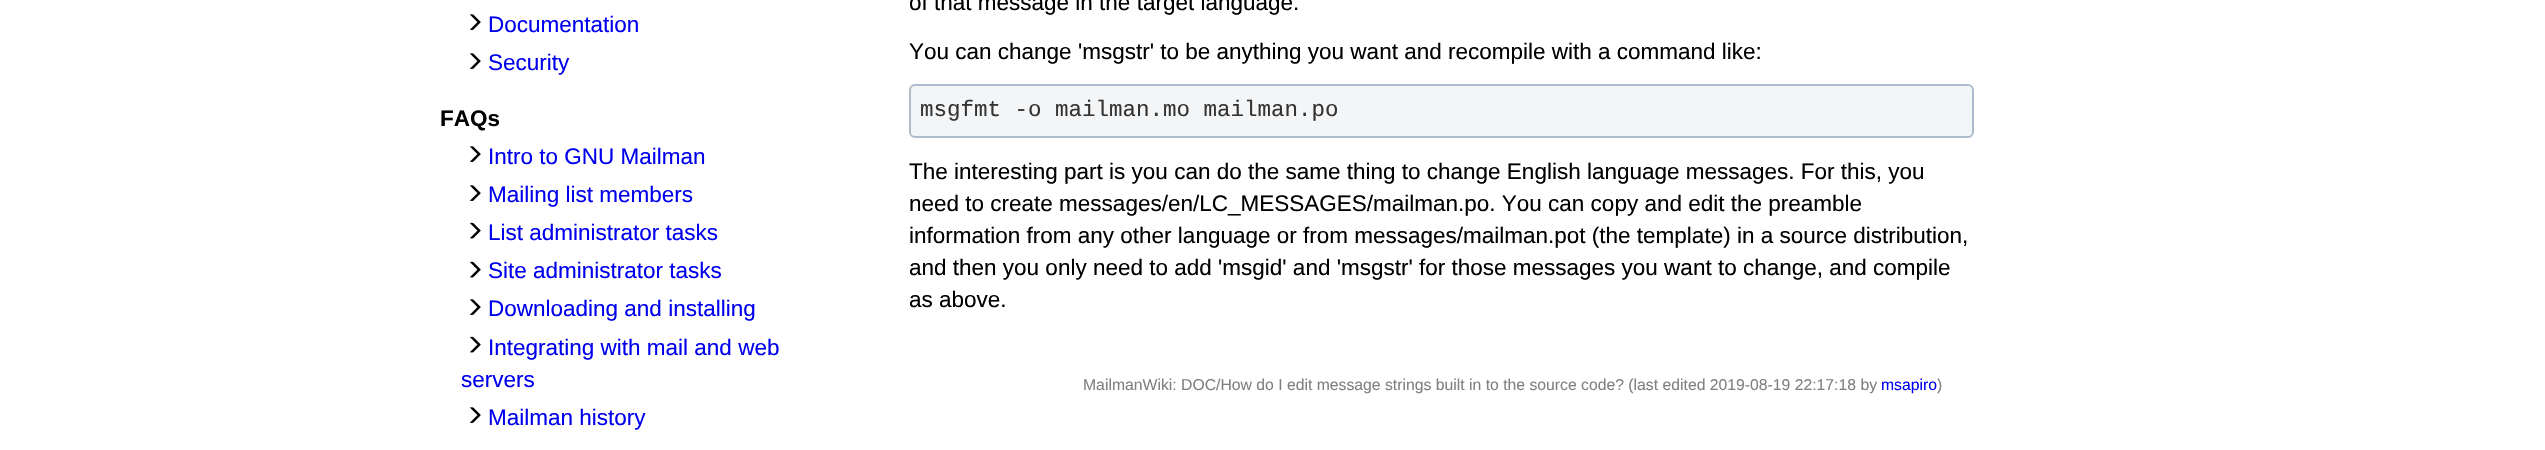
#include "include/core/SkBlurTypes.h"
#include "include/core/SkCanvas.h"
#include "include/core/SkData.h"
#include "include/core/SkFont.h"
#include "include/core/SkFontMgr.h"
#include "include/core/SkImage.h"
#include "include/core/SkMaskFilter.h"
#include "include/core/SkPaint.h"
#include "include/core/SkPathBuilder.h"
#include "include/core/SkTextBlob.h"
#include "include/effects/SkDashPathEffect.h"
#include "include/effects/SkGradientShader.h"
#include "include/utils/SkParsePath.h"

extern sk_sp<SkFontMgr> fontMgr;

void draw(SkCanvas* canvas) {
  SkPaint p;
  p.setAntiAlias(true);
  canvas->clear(SK_ColorWHITE);
  canvas->drawImageRect(SkImages::DeferredFromEncodedData(SkData::MakeFromFileName("images/1.png")), SkRect::MakeLTRB(470, 14, 481, 30), SkSamplingOptions());
  canvas->drawImageRect(SkImages::DeferredFromEncodedData(SkData::MakeFromFileName("images/1.png")), SkRect::MakeLTRB(470, 53, 481, 69), SkSamplingOptions());
  canvas->drawImageRect(SkImages::DeferredFromEncodedData(SkData::MakeFromFileName("images/1.png")), SkRect::MakeLTRB(470, 146, 481, 162), SkSamplingOptions());
  canvas->drawImageRect(SkImages::DeferredFromEncodedData(SkData::MakeFromFileName("images/1.png")), SkRect::MakeLTRB(470, 185, 481, 201), SkSamplingOptions());
  canvas->drawImageRect(SkImages::DeferredFromEncodedData(SkData::MakeFromFileName("images/2.png")), SkRect::MakeLTRB(470, 222, 481, 239), SkSamplingOptions());
  canvas->drawImageRect(SkImages::DeferredFromEncodedData(SkData::MakeFromFileName("images/2.png")), SkRect::MakeLTRB(470, 261, 481, 278), SkSamplingOptions());
  canvas->drawImageRect(SkImages::DeferredFromEncodedData(SkData::MakeFromFileName("images/1.png")), SkRect::MakeLTRB(470, 299, 481, 315), SkSamplingOptions());
  canvas->drawImageRect(SkImages::DeferredFromEncodedData(SkData::MakeFromFileName("images/2.png")), SkRect::MakeLTRB(470, 336, 481, 353), SkSamplingOptions());
  canvas->drawImageRect(SkImages::DeferredFromEncodedData(SkData::MakeFromFileName("images/1.png")), SkRect::MakeLTRB(470, 407, 481, 423), SkSamplingOptions());
  p.setColor(SkColorSetRGB(243, 245, 247));
  canvas->drawRoundRect(SkRect::MakeLTRB(910, 85, 1973, 137), 5, 5, p);
  p.setStyle(SkPaint::kStroke_Style);
  p.setStrokeWidth(2);
  p.setColor(SkColorSetRGB(174, 189, 204));
  canvas->drawRoundRect(SkRect::MakeLTRB(910, 85, 1973, 137), 5, 5, p);
  SkFont font1(fontMgr->matchFamilyStyle("Liberation Sans", SkFontStyle::Normal()), 22.5f);
  font1.setSubpixel(true);
  p.setStyle(SkPaint::kFill_Style);
  p.setColor(SkColorSetRGB(0, 0, 238));
  canvas->drawString("Documentation", 488, 32, font1, p);
  canvas->drawString("Security", 488, 70, font1, p);
  SkFont font2(fontMgr->matchFamilyStyle("Liberation Sans", SkFontStyle::Bold()), 22.5f);
  font2.setSubpixel(true);
  p.setColor(SK_ColorBLACK);
  canvas->drawString("FAQs", 440, 126, font2, p);
  p.setColor(SkColorSetRGB(0, 0, 238));
  canvas->drawString("Intro to GNU Mailman", 488, 164, font1, p);
  canvas->drawString("Mailing list members", 488, 202, font1, p);
  canvas->drawString("List administrator tasks", 488, 240, font1, p);
  canvas->drawString("Site administrator tasks", 488, 278, font1, p);
  canvas->drawString("Downloading and installing", 488, 316, font1, p);
  canvas->drawString("Integrating with mail and web", 488, 355, font1, p);
  canvas->drawString("servers", 461, 387, font1, p);
  canvas->drawString("Mailman history", 488, 425, font1, p);
  p.setColor(SK_ColorBLACK);
  canvas->drawString("of that message in the target language.", 909, 10, font1, p);
  canvas->drawString("You can change 'msgstr' to be anything you want and recompile with a command like:", 909, 59, font1, p);
  SkFont font3(fontMgr->matchFamilyStyle("Liberation Mono", SkFontStyle::Normal()), 22.5f);
  font3.setSubpixel(true);
  p.setColor(SkColorSetRGB(51, 51, 51));
  canvas->drawString("msgfmt -o mailman.mo mailman.po", 920, 116, font3, p);
  p.setColor(SK_ColorBLACK);
  canvas->drawString("The interesting part is you can do the same thing to change English language messages. For this, you", 909, 179, font1, p);
  canvas->drawString("need to create messages/en/LC_MESSAGES/mailman.po. You can copy and edit the preamble", 909, 211, font1, p);
  canvas->drawString("information from any other language or from messages/mailman.pot (the template) in a source distribution,", 909, 243, font1, p);
  canvas->drawString("and then you only need to add 'msgid' and 'msgstr' for those messages you want to change, and compile", 909, 275, font1, p);
  canvas->drawString("as above.", 909, 307, font1, p);
  SkFont font4(fontMgr->matchFamilyStyle("Liberation Sans", SkFontStyle::Normal()), 15.75f);
  font4.setSubpixel(true);
  p.setColor(SkColorSetRGB(128, 128, 128));
  canvas->drawString("MailmanWiki: DOC/How do I edit message strings built in to the source code? (last edited 2019-08-19 22:17:18 by", 1083, 390, font4, p);
  p.setColor(SkColorSetRGB(0, 0, 238));
  canvas->drawString("msapiro", 1881, 390, font4, p);
  p.setColor(SkColorSetRGB(128, 128, 128));
  canvas->drawString(")", 1937, 390, font4, p);
}
